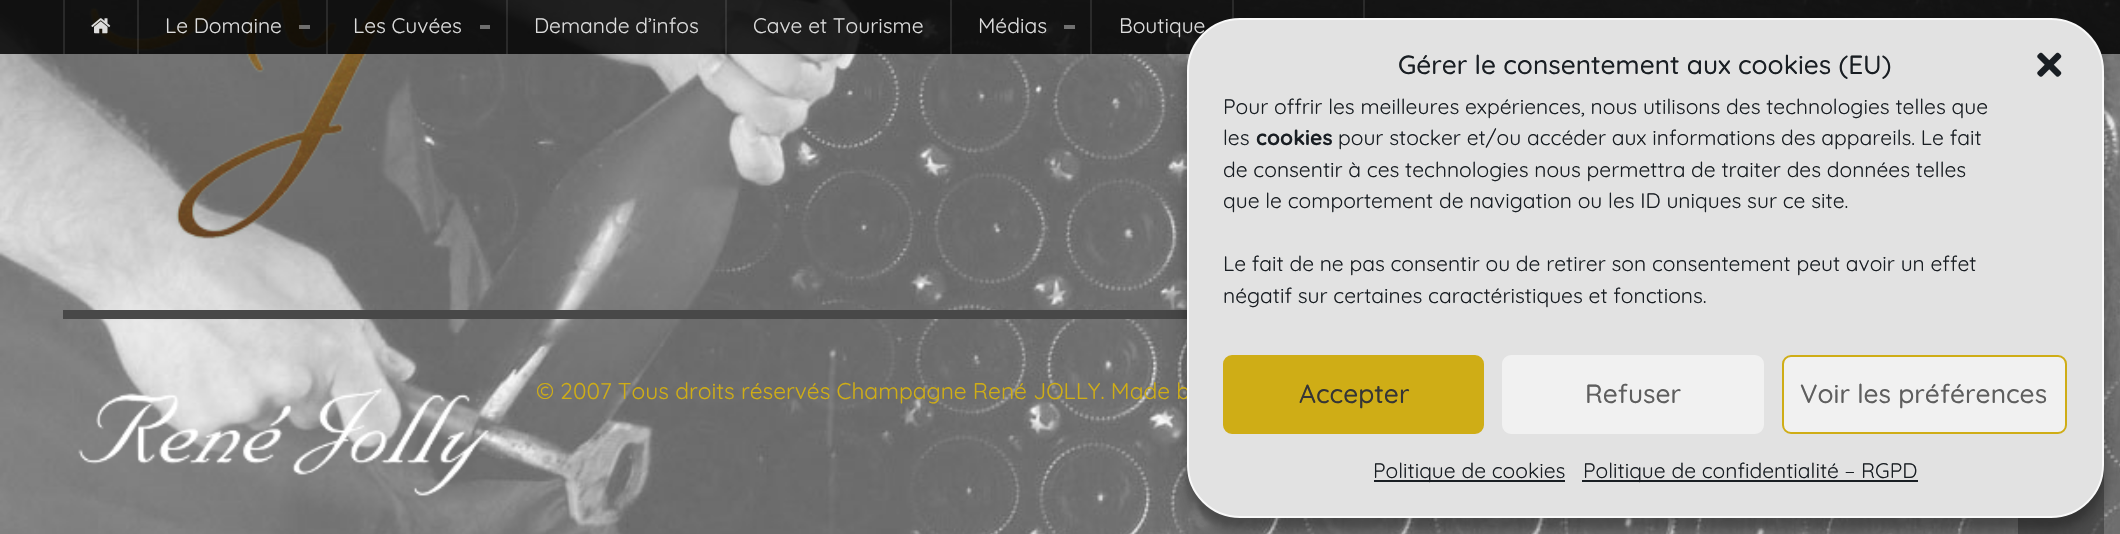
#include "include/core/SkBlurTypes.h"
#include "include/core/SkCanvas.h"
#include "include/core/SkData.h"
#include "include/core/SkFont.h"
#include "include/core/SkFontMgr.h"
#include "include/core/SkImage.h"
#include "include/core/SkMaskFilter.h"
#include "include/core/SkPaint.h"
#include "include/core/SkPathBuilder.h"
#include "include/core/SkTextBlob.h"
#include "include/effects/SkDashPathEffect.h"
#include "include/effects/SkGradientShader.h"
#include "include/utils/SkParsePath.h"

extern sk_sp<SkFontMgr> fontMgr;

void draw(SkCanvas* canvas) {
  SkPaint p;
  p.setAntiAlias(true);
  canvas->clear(SK_ColorWHITE);
  canvas->drawImageRect(SkImages::DeferredFromEncodedData(SkData::MakeFromFileName("images/2.png")), SkRect::MakeLTRB(0, 0, 2120, 534), SkSamplingOptions());
  canvas->drawImageRect(SkImages::DeferredFromEncodedData(SkData::MakeFromFileName("images/3.png")), SkRect::MakeLTRB(89, 0, 397, 239), SkSamplingOptions());
  p.setColor(SkColorSetARGB(217, 0, 0, 0));
  canvas->drawRect(SkRect::MakeLTRB(0, 0, 2120, 54), p);
  p.setColor(SkColorSetRGB(41, 41, 41));
  canvas->drawRect(SkRect::MakeLTRB(63, 0, 65, 54), p);
  canvas->drawImageRect(SkImages::DeferredFromEncodedData(SkData::MakeFromFileName("images/1.png")), SkRect::MakeLTRB(91, 18, 111, 34), SkSamplingOptions());
  p.setColor(SkColorSetRGB(43, 43, 43));
  canvas->drawRect(SkRect::MakeLTRB(1363, 0, 1365, 18), p);
  p.setColor(SkColorSetRGB(42, 42, 42));
  canvas->drawRect(SkRect::MakeLTRB(1232, 0, 1234, 19), p);
  p.setColor(SkColorSetARGB(26, 255, 255, 255));
  canvas->drawRect(SkRect::MakeLTRB(137, 0, 139, 54), p);
  p.setColor(SkColorSetARGB(128, 204, 204, 204));
  canvas->drawRect(SkRect::MakeLTRB(299, 25, 310, 29), p);
  p.setColor(SkColorSetARGB(26, 255, 255, 255));
  canvas->drawRect(SkRect::MakeLTRB(326, 0, 328, 54), p);
  p.setColor(SkColorSetRGB(110, 110, 110));
  canvas->drawRect(SkRect::MakeLTRB(480, 25, 490, 29), p);
  p.setColor(SkColorSetARGB(26, 255, 255, 255));
  canvas->drawRect(SkRect::MakeLTRB(506, 0, 508, 54), p);
  canvas->drawRect(SkRect::MakeLTRB(725, 0, 727, 54), p);
  canvas->drawRect(SkRect::MakeLTRB(950, 0, 952, 54), p);
  p.setColor(SkColorSetARGB(128, 204, 204, 204));
  canvas->drawRect(SkRect::MakeLTRB(1064, 25, 1075, 29), p);
  p.setColor(SkColorSetARGB(26, 255, 255, 255));
  canvas->drawRect(SkRect::MakeLTRB(1090, 0, 1092, 54), p);
  p.setColor(SkColorSetRGB(72, 72, 72));
  canvas->drawRect(SkRect::MakeLTRB(63, 310, 1187, 319), p);
  canvas->drawImageRect(SkImages::DeferredFromEncodedData(SkData::MakeFromFileName("images/4.png")), SkRect::MakeLTRB(78, 388, 489, 496), SkSamplingOptions());
  p.setColor(SkColorSetARGB(179, 64, 64, 64));
  canvas->drawRect(SkRect::MakeLTRB(2018, 465, 2104, 534), p);
  p.setColor(SkColorSetARGB(59, 0, 0, 0));
  p.setMaskFilter(SkMaskFilter::MakeBlur(kNormal_SkBlurStyle, 5));
  canvas->drawRoundRect(SkRect::MakeLTRB(1187, 28, 2104, 529), 53, 53, p);
  p.setMaskFilter(nullptr);
  p.setColor(SkColorSetARGB(48, 0, 0, 0));
  p.setMaskFilter(SkMaskFilter::MakeBlur(kNormal_SkBlurStyle, 17.5f));
  canvas->drawRoundRect(SkRect::MakeLTRB(1187, 35, 2104, 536), 53, 53, p);
  p.setMaskFilter(nullptr);
  SkFont font1(fontMgr->matchFamilyStyle("Quicksand", SkFontStyle::Normal()), 21);
  font1.setSubpixel(true);
  p.setColor(SkColorSetRGB(221, 221, 221));
  canvas->drawString("Le Domaine", 165, 33, font1, p);
  canvas->drawString("Les Cuvées", 353, 33, font1, p);
  canvas->drawString("Demande d’infos", 534, 33, font1, p);
  canvas->drawString("Cave et Tourisme", 753, 33, font1, p);
  canvas->drawString("Médias", 978, 33, font1, p);
  canvas->drawString("Boutique", 1119, 33, font1, p);
  SkFont font2(fontMgr->matchFamilyStyle("Quicksand", SkFontStyle::Normal()), 22.75f);
  font2.setSubpixel(true);
  p.setColor(SkColorSetRGB(207, 173, 22));
  canvas->drawString("© 2007 Tous droits réservés Champagne René JOLLY. Made b", 536, 399, font2, p);
  p.setColor(SkColorSetRGB(226, 226, 226));
  canvas->drawRoundRect(SkRect::MakeLTRB(1188, 19, 2103, 517), 52, 52, p);
  p.setStyle(SkPaint::kStroke_Style);
  p.setStrokeWidth(2);
  p.setColor(SkColorSetRGB(249, 249, 249));
  canvas->drawRoundRect(SkRect::MakeLTRB(1188, 19, 2103, 517), 52, 52, p);
  SkFont font3(fontMgr->matchFamilyStyle("Quicksand", SkFontStyle(500, SkFontStyle::kNormal_Width, SkFontStyle::kUpright_Slant)), 26.25f);
  font3.setSubpixel(true);
  p.setStyle(SkPaint::kFill_Style);
  p.setColor(SkColorSetRGB(25, 30, 35));
  canvas->drawString("Gérer le consentement aux cookies (EU)", 1398, 74, font3, p);
  canvas->drawImageRect(SkImages::DeferredFromEncodedData(SkData::MakeFromFileName("images/5.png")), SkRect::MakeLTRB(2037, 52, 2062, 77), SkSamplingOptions());
  canvas->drawString("Pour offrir les meilleures expériences, nous utilisons des technologies telles que", 1223, 114, font1, p);
  canvas->drawString("les", 1223, 145, font1, p);
  SkFont font4(fontMgr->matchFamilyStyle("Quicksand", SkFontStyle::Bold()), 21);
  font4.setSubpixel(true);
  canvas->drawString("cookies", 1256, 145, font4, p);
  canvas->drawString("pour stocker et/ou accéder aux informations des appareils. Le fait", 1338, 145, font1, p);
  canvas->drawString("de consentir à ces technologies nous permettra de traiter des données telles", 1223, 177, font1, p);
  canvas->drawString("que le comportement de navigation ou les ID uniques sur ce site.", 1223, 208, font1, p);
  canvas->drawString("Le fait de ne pas consentir ou de retirer son consentement peut avoir un effet", 1223, 271, font1, p);
  canvas->drawString("négatif sur certaines caractéristiques et fonctions.", 1223, 303, font1, p);
  p.setColor(SkColorSetRGB(207, 173, 22));
  canvas->drawRoundRect(SkRect::MakeLTRB(1224, 356, 1483, 433), 8, 8, p);
  p.setStyle(SkPaint::kStroke_Style);
  canvas->drawRoundRect(SkRect::MakeLTRB(1224, 356, 1483, 433), 8, 8, p);
  p.setStyle(SkPaint::kFill_Style);
  p.setColor(SkColorSetRGB(53, 53, 53));
  canvas->drawString("Accepter", 1299, 403, font3, p);
  p.setColor(SkColorSetRGB(241, 241, 241));
  canvas->drawRoundRect(SkRect::MakeLTRB(1503, 356, 1763, 433), 8, 8, p);
  p.setStyle(SkPaint::kStroke_Style);
  canvas->drawRoundRect(SkRect::MakeLTRB(1503, 356, 1763, 433), 8, 8, p);
  p.setStyle(SkPaint::kFill_Style);
  p.setColor(SkColorSetRGB(94, 94, 94));
  canvas->drawString("Refuser", 1585, 403, font3, p);
  p.setColor(SkColorSetRGB(241, 241, 241));
  canvas->drawRoundRect(SkRect::MakeLTRB(1783, 356, 2066, 433), 8, 8, p);
  p.setStyle(SkPaint::kStroke_Style);
  p.setColor(SkColorSetRGB(207, 173, 22));
  canvas->drawRoundRect(SkRect::MakeLTRB(1783, 356, 2066, 433), 8, 8, p);
  p.setStyle(SkPaint::kFill_Style);
  p.setColor(SkColorSetRGB(94, 94, 94));
  canvas->drawString("Voir les préférences", 1800, 403, font3, p);
  p.setColor(SkColorSetRGB(25, 30, 35));
  canvas->drawRect(SkRect::MakeLTRB(1374, 480, 1565, 482), p);
  canvas->drawString("Politique de cookies", 1373, 478, font1, p);
  canvas->drawRect(SkRect::MakeLTRB(1582, 480, 1918, 482), p);
  canvas->drawString("Politique de confidentialité – RGPD", 1583, 478, font1, p);
}
